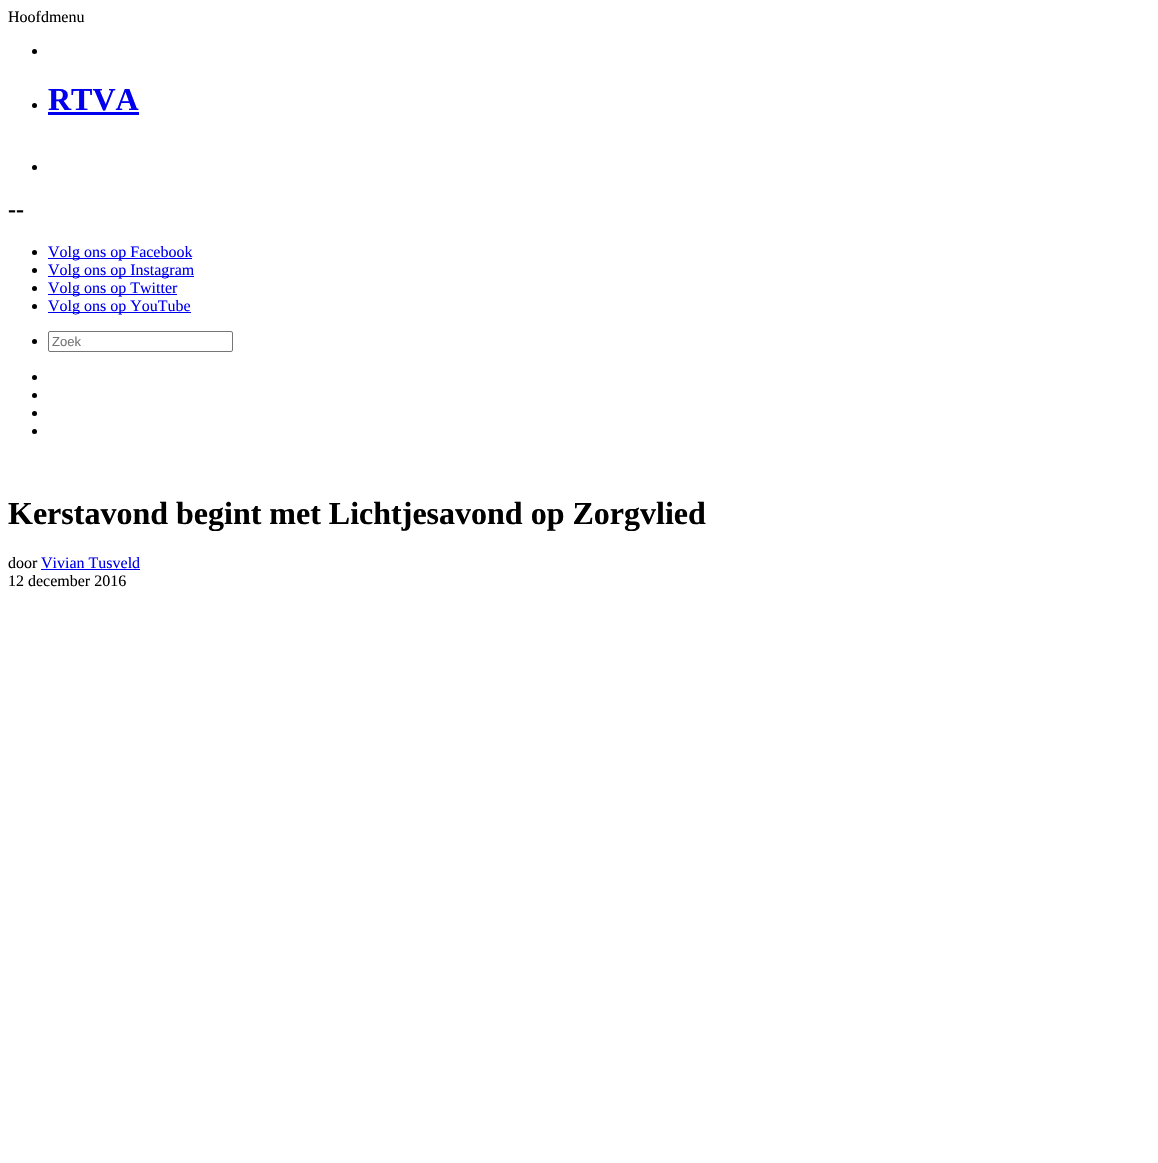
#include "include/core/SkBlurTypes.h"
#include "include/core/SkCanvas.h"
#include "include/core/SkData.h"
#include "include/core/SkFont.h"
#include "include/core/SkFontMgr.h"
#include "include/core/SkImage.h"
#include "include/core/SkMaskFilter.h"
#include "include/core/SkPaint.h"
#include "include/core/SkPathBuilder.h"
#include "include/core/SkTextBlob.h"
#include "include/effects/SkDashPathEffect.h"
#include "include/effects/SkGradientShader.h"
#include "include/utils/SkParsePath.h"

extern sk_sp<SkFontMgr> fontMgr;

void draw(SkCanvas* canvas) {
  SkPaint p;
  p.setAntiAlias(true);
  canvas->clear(SK_ColorWHITE);
  p.setColor(SK_ColorBLACK);
  canvas->drawCircle(34.5f, 51.5f, 2.5f, p);
  canvas->drawCircle(34.5f, 105.5f, 2.5f, p);
  p.setColor(SkColorSetRGB(0, 0, 238));
  canvas->drawRect(SkRect::MakeLTRB(48, 112, 139, 115), p);
  p.setColor(SK_ColorBLACK);
  canvas->drawCircle(34.5f, 167.5f, 2.5f, p);
  canvas->drawCircle(34.5f, 252.5f, 2.5f, p);
  p.setColor(SkColorSetRGB(0, 0, 238));
  canvas->drawRect(SkRect::MakeLTRB(48, 258, 192, 259), p);
  p.setColor(SK_ColorBLACK);
  canvas->drawCircle(34.5f, 270.5f, 2.5f, p);
  p.setColor(SkColorSetRGB(0, 0, 238));
  canvas->drawRect(SkRect::MakeLTRB(48, 276, 194, 277), p);
  p.setColor(SK_ColorBLACK);
  canvas->drawCircle(34.5f, 288.5f, 2.5f, p);
  p.setColor(SkColorSetRGB(0, 0, 238));
  canvas->drawRect(SkRect::MakeLTRB(48, 294, 177, 295), p);
  p.setColor(SK_ColorBLACK);
  canvas->drawCircle(34.5f, 306.5f, 2.5f, p);
  p.setColor(SkColorSetRGB(0, 0, 238));
  canvas->drawRect(SkRect::MakeLTRB(48, 312, 191, 313), p);
  p.setColor(SK_ColorBLACK);
  canvas->drawCircle(34.5f, 341.5f, 2.5f, p);
  p.setStyle(SkPaint::kStroke_Style);
  p.setStrokeWidth(1);
  p.setColor(SkColorSetRGB(118, 118, 118));
  canvas->drawRoundRect(SkRect::MakeLTRB(48.5f, 331.5f, 232.5f, 351.5f), 1.5f, 1.5f, p);
  p.setStyle(SkPaint::kFill_Style);
  p.setColor(SK_ColorBLACK);
  canvas->drawCircle(34.5f, 377.5f, 2.5f, p);
  canvas->drawCircle(34.5f, 395.5f, 2.5f, p);
  canvas->drawCircle(34.5f, 413.5f, 2.5f, p);
  canvas->drawCircle(34.5f, 431.5f, 2.5f, p);
  p.setColor(SkColorSetRGB(0, 0, 238));
  canvas->drawRect(SkRect::MakeLTRB(41, 569, 140, 570), p);
  SkFont font1(fontMgr->matchFamilyStyle("Liberation Serif", SkFontStyle::Normal()), 16);
  font1.setSubpixel(true);
  p.setColor(SK_ColorBLACK);
  canvas->drawString("Hoofdmenu", 8, 22, font1, p);
  SkFont font2(fontMgr->matchFamilyStyle("Liberation Serif", SkFontStyle::Bold()), 32);
  font2.setSubpixel(true);
  p.setColor(SkColorSetRGB(0, 0, 238));
  canvas->drawString("RTVA", 48, 110, font2, p);
  SkFont font3(fontMgr->matchFamilyStyle("Liberation Serif", SkFontStyle::Bold()), 24);
  font3.setSubpixel(true);
  p.setColor(SK_ColorBLACK);
  canvas->drawString("--", 8, 217, font3, p);
  p.setColor(SkColorSetRGB(0, 0, 238));
  canvas->drawString("Volg ons op Facebook", 48, 257, font1, p);
  canvas->drawString("Volg ons op Instagram", 48, 275, font1, p);
  canvas->drawString("Volg ons op Twitter", 48, 293, font1, p);
  canvas->drawString("Volg ons op YouTube", 48, 311, font1, p);
  SkFont font4(fontMgr->matchFamilyStyle("Liberation Sans", SkFontStyle::Normal()), 13);
  font4.setSubpixel(true);
  p.setColor(SkColorSetRGB(117, 117, 117));
  canvas->drawString("Zoek", 52, 346, font4, p);
  p.setColor(SK_ColorBLACK);
  canvas->drawString("Kerstavond begint met Lichtjesavond op Zorgvlied", 8, 524, font2, p);
  canvas->drawString("door", 8, 568, font1, p);
  p.setColor(SkColorSetRGB(0, 0, 238));
  canvas->drawString("Vivian Tusveld", 41, 568, font1, p);
  p.setColor(SK_ColorBLACK);
  canvas->drawString("12 december 2016", 8, 586, font1, p);
}
